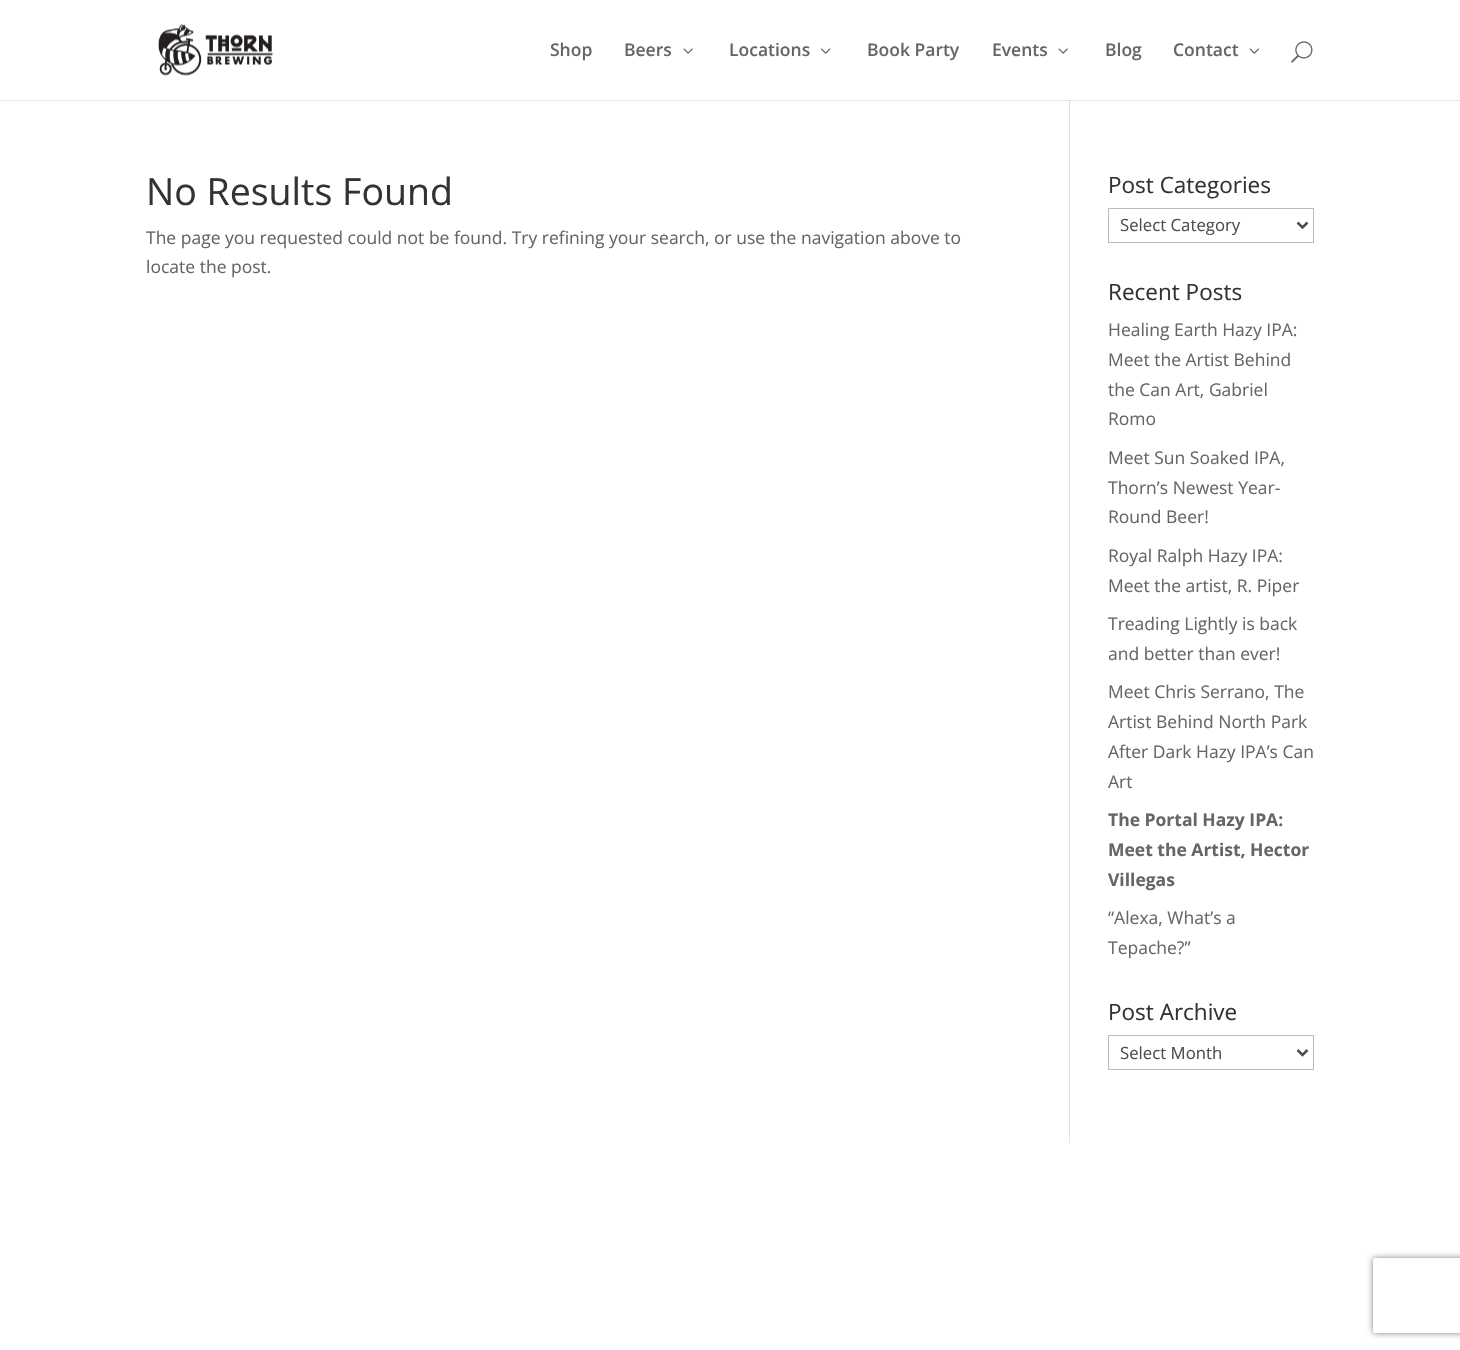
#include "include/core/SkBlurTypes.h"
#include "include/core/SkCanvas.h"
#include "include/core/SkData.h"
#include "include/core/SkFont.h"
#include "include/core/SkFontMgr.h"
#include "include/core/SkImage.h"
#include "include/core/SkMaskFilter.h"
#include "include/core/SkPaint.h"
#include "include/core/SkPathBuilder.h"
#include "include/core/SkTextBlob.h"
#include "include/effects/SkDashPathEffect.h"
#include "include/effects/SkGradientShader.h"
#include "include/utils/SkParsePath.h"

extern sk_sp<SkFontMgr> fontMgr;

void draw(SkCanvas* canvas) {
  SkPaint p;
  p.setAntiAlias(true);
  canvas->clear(SK_ColorWHITE);
  p.setColor(SkColorSetRGB(230, 230, 230));
  canvas->drawRect(SkRect::MakeLTRB(0, 100, 1460, 101), p);
  canvas->drawImageRect(SkImages::DeferredFromEncodedData(SkData::MakeFromFileName("images/1.png")), SkRect::MakeLTRB(158, 24, 273, 76), SkSamplingOptions());
  canvas->drawImageRect(SkImages::DeferredFromEncodedData(SkData::MakeFromFileName("images/2.png")), SkRect::MakeLTRB(683, 48, 693, 54), SkSamplingOptions());
  canvas->drawImageRect(SkImages::DeferredFromEncodedData(SkData::MakeFromFileName("images/3.png")), SkRect::MakeLTRB(821, 48, 831, 54), SkSamplingOptions());
  canvas->drawImageRect(SkImages::DeferredFromEncodedData(SkData::MakeFromFileName("images/2.png")), SkRect::MakeLTRB(1058, 48, 1068, 54), SkSamplingOptions());
  canvas->drawImageRect(SkImages::DeferredFromEncodedData(SkData::MakeFromFileName("images/4.png")), SkRect::MakeLTRB(1249, 48, 1259, 54), SkSamplingOptions());
  canvas->drawImageRect(SkImages::DeferredFromEncodedData(SkData::MakeFromFileName("images/5.png")), SkRect::MakeLTRB(1291, 41, 1313, 63), SkSamplingOptions());
  p.setColor(SkColorSetRGB(226, 226, 226));
  canvas->drawRect(SkRect::MakeLTRB(1069, 100, 1070, 1143), p);
  p.setColor(SkColorSetRGB(203, 203, 203));
  canvas->drawRect(SkRect::MakeLTRB(1069, 100, 1070, 101), p);
  p.setStyle(SkPaint::kStroke_Style);
  p.setStrokeWidth(1);
  p.setColor(SkColorSetRGB(187, 187, 187));
  canvas->drawRect(SkRect::MakeLTRB(1108.5f, 208.5f, 1313.5f, 242.5f), p);
  p.setStrokeWidth(2.5f);
  p.setColor(SkColorSetRGB(78, 78, 78));
  canvas->drawPath(SkPathBuilder().moveTo(1297.5f, 222.5f).lineTo(1302.5f, 227.5f).lineTo(1307.5f, 222.5f).detach(), p);
  p.setStrokeWidth(1);
  p.setColor(SkColorSetRGB(187, 187, 187));
  canvas->drawRect(SkRect::MakeLTRB(1108.5f, 1035.5f, 1313.5f, 1069.5f), p);
  p.setStrokeWidth(2.5f);
  p.setColor(SkColorSetRGB(78, 78, 78));
  canvas->drawPath(SkPathBuilder().moveTo(1297.5f, 1050).lineTo(1302.5f, 1055).lineTo(1307.5f, 1050).detach(), p);
  canvas->save();
  canvas->clipPath(SkPathBuilder(SkPathFillType::kEvenOdd).moveTo(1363, 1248).lineTo(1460, 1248).lineTo(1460, 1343).lineTo(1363, 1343).close().moveTo(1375.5f, 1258).lineTo(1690.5f, 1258).cubicTo(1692, 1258, 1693, 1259, 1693, 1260.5f).lineTo(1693, 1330.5f).cubicTo(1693, 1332, 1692, 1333, 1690.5f, 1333).lineTo(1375.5f, 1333).cubicTo(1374, 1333, 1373, 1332, 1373, 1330.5f).lineTo(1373, 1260.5f).cubicTo(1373, 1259, 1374, 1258, 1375.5f, 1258).close().detach(), true);
  p.setStyle(SkPaint::kFill_Style);
  p.setColor(SkColorSetRGB(128, 128, 128));
  p.setMaskFilter(SkMaskFilter::MakeBlur(kNormal_SkBlurStyle, 3));
  canvas->drawRoundRect(SkRect::MakeLTRB(1373, 1258, 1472, 1333), 2.5f, 2.5f, p);
  p.setMaskFilter(nullptr);
  canvas->restore();
  SkFont font1(fontMgr->matchFamilyStyle("Open Sans", SkFontStyle(600, SkFontStyle::kNormal_Width, SkFontStyle::kUpright_Slant)), 17.5f);
  font1.setSubpixel(true);
  p.setColor(SkColorSetRGB(102, 102, 102));
  canvas->drawString("Shop", 550, 56, font1, p);
  canvas->drawString("Beers", 624, 56, font1, p);
  canvas->drawString("Locations", 729, 56, font1, p);
  canvas->drawString("Book Party", 867, 56, font1, p);
  canvas->drawString("Events", 992, 56, font1, p);
  canvas->drawString("Blog", 1105, 56, font1, p);
  canvas->drawString("Contact", 1173, 56, font1, p);
  SkFont font2(fontMgr->matchFamilyStyle("Open Sans", SkFontStyle::Normal()), 37.5f);
  font2.setSubpixel(true);
  p.setColor(SkColorSetRGB(51, 51, 51));
  canvas->drawString("No Results Found", 146, 205, font2, p);
  SkFont font3(fontMgr->matchFamilyStyle("Open Sans", SkFontStyle::Normal()), 17.5f);
  font3.setSubpixel(true);
  p.setColor(SkColorSetRGB(102, 102, 102));
  canvas->drawString("The page you requested could not be found. Try refining your search, or use the navigation above to", 146, 244, font3, p);
  canvas->drawString("locate the post.", 146, 273, font3, p);
  SkFont font4(fontMgr->matchFamilyStyle("Open Sans", SkFontStyle::Normal()), 22.5f);
  font4.setSubpixel(true);
  p.setColor(SkColorSetRGB(51, 51, 51));
  canvas->drawString("Post Categories", 1108, 193, font4, p);
  SkFont font5(fontMgr->matchFamilyStyle("Open Sans", SkFontStyle::Normal()), 16.75f);
  font5.setSubpixel(true);
  p.setColor(SkColorSetRGB(78, 78, 78));
  canvas->drawString("Select Category", 1120, 231, font5, p);
  p.setColor(SkColorSetRGB(51, 51, 51));
  canvas->drawString("Recent Posts", 1108, 300, font4, p);
  p.setColor(SkColorSetRGB(102, 102, 102));
  canvas->drawString("Healing Earth Hazy IPA:", 1108, 336, font3, p);
  canvas->drawString("Meet the Artist Behind", 1108, 366, font3, p);
  canvas->drawString("the Can Art, Gabriel", 1108, 396, font3, p);
  canvas->drawString("Romo", 1108, 425, font3, p);
  canvas->drawString("Meet Sun Soaked IPA,", 1108, 464, font3, p);
  canvas->drawString("Thorn’s Newest Year-", 1108, 494, font3, p);
  canvas->drawString("Round Beer!", 1108, 523, font3, p);
  canvas->drawString("Royal Ralph Hazy IPA:", 1108, 562, font3, p);
  canvas->drawString("Meet the artist, R. Piper", 1108, 592, font3, p);
  canvas->drawString("Treading Lightly is back", 1108, 630, font3, p);
  canvas->drawString("and better than ever!", 1108, 660, font3, p);
  canvas->drawString("Meet Chris Serrano, The", 1108, 698, font3, p);
  canvas->drawString("Artist Behind North Park", 1108, 728, font3, p);
  canvas->drawString("After Dark Hazy IPA’s Can", 1108, 758, font3, p);
  canvas->drawString("Art", 1108, 788, font3, p);
  SkFont font6(fontMgr->matchFamilyStyle("Open Sans", SkFontStyle::Bold()), 17.5f);
  font6.setSubpixel(true);
  canvas->drawString("The Portal Hazy IPA:", 1108, 826, font6, p);
  canvas->drawString("Meet the Artist, Hector", 1108, 856, font6, p);
  canvas->drawString("Villegas", 1108, 886, font6, p);
  canvas->drawString("“Alexa, What’s a", 1108, 924, font3, p);
  canvas->drawString("Tepache?”", 1108, 954, font3, p);
  p.setColor(SkColorSetRGB(51, 51, 51));
  canvas->drawString("Post Archive", 1108, 1020, font4, p);
  p.setColor(SkColorSetRGB(78, 78, 78));
  canvas->drawString("Select Month", 1120, 1059, font5, p);
}
